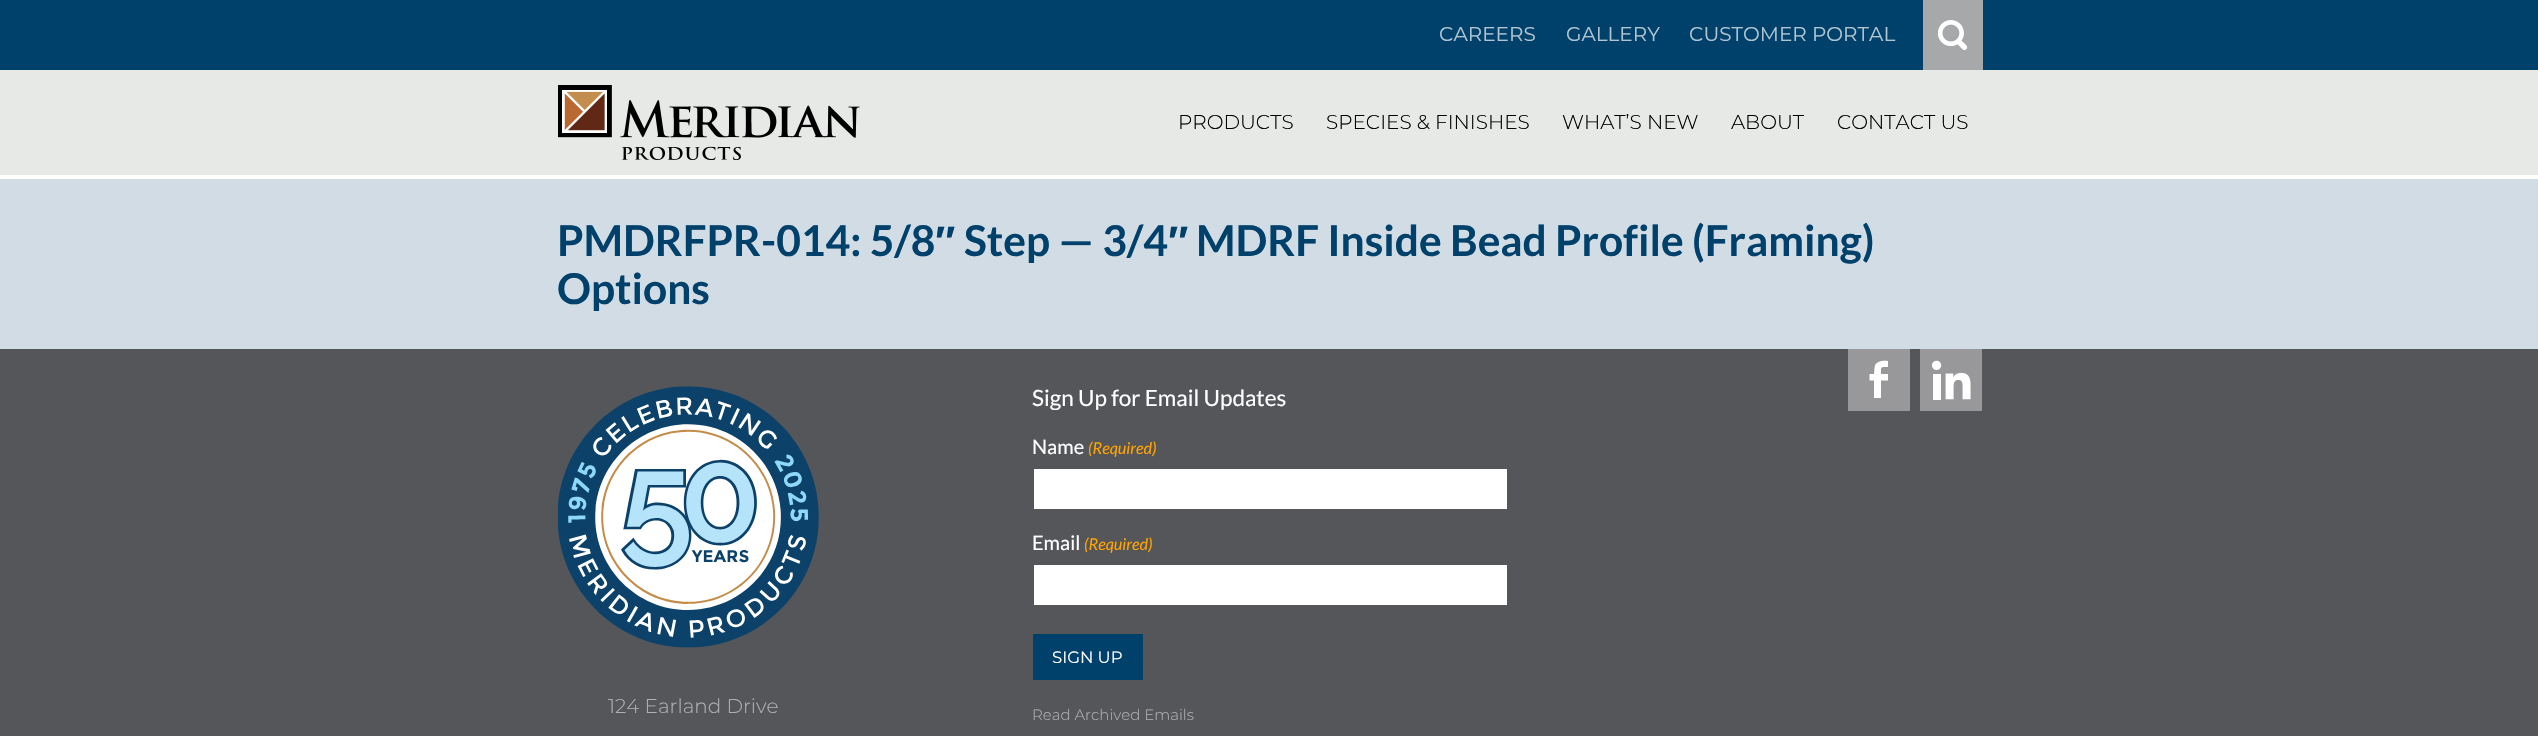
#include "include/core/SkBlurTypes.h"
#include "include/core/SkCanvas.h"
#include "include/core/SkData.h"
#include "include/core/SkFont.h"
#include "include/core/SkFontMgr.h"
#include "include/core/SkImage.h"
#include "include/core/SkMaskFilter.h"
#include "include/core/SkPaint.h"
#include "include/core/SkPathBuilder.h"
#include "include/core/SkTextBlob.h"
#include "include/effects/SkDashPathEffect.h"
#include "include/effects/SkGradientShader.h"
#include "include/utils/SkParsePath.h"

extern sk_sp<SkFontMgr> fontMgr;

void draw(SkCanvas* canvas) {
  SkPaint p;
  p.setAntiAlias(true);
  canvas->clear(SK_ColorWHITE);
  p.setColor(SkColorSetRGB(0, 65, 107));
  canvas->drawRect(SkRect::MakeLTRB(0, 0, 2538, 70), p);
  p.setColor(SkColorSetRGB(167, 168, 169));
  canvas->drawRect(SkRect::MakeLTRB(1923, 0, 1983, 70), p);
  canvas->drawImageRect(SkImages::DeferredFromEncodedData(SkData::MakeFromFileName("images/1.png")), SkRect::MakeLTRB(1938, 20, 1968, 50), SkSamplingOptions());
  p.setColor(SkColorSetRGB(231, 233, 231));
  canvas->drawRect(SkRect::MakeLTRB(0, 70, 2538, 175), p);
  canvas->drawImageRect(SkImages::DeferredFromEncodedData(SkData::MakeFromFileName("images/2.png")), SkRect::MakeLTRB(558, 85, 860, 160), SkSamplingOptions());
  p.setColor(SkColorSetRGB(210, 220, 229));
  canvas->drawRect(SkRect::MakeLTRB(0, 179, 2538, 349), p);
  p.setColor(SkColorSetRGB(84, 86, 90));
  canvas->drawRect(SkRect::MakeLTRB(0, 349, 2538, 736), p);
  p.setColor(SkColorSetRGB(152, 152, 154));
  canvas->drawRect(SkRect::MakeLTRB(1848, 349, 1910, 411), p);
  p.setColor(SK_ColorWHITE);
  canvas->drawPath(SkPathBuilder().moveTo(1874, 398).lineTo(1874, 380.5f).lineTo(1869.5f, 380.5f).lineTo(1869.5f, 374).lineTo(1874, 374).lineTo(1874.5f, 367.5f).cubicTo(1875.5f, 361, 1882.5f, 360.5f, 1888, 361).lineTo(1888, 367).cubicTo(1880, 367, 1881, 367, 1881, 374).lineTo(1888, 374).lineTo(1888, 380.5f).lineTo(1881, 380.5f).lineTo(1881, 398).close().detach(), p);
  canvas->drawImageRect(SkImages::DeferredFromEncodedData(SkData::MakeFromFileName("images/3.png")), SkRect::MakeLTRB(1920, 349, 1982, 411), SkSamplingOptions());
  canvas->drawImageRect(SkImages::DeferredFromEncodedData(SkData::MakeFromFileName("images/4.png")), SkRect::MakeLTRB(558, 386, 819, 648), SkSamplingOptions());
  canvas->drawRect(SkRect::MakeLTRB(1034, 469, 1507, 509), p);
  canvas->drawRect(SkRect::MakeLTRB(1034, 565, 1507, 605), p);
  p.setColor(SkColorSetRGB(0, 65, 107));
  canvas->drawRect(SkRect::MakeLTRB(1033, 634, 1143, 680), p);
  SkFont font1(fontMgr->matchFamilyStyle("Montserrat", SkFontStyle::Normal()), 20);
  font1.setSubpixel(true);
  p.setColor(SkColorSetRGB(178, 198, 210));
  canvas->drawString("CAREERS", 1439, 41, font1, p);
  canvas->drawString("GALLERY", 1566, 41, font1, p);
  canvas->drawString("CUSTOMER PORTAL", 1689, 41, font1, p);
  SkFont font2(fontMgr->matchFamilyStyle("Montserrat", SkFontStyle(300, SkFontStyle::kNormal_Width, SkFontStyle::kUpright_Slant)), 20);
  font2.setSubpixel(true);
  p.setColor(SK_ColorBLACK);
  canvas->drawString("PRODUCTS", 1178, 129, font2, p);
  canvas->drawString("SPECIES & FINISHES", 1326, 129, font2, p);
  canvas->drawString("WHAT’S NEW", 1562, 129, font2, p);
  canvas->drawString("ABOUT", 1731, 129, font2, p);
  canvas->drawString("CONTACT US", 1837, 129, font2, p);
  SkFont font3(fontMgr->matchFamilyStyle("Lato", SkFontStyle::Bold()), 42.5f);
  font3.setSubpixel(true);
  p.setColor(SkColorSetRGB(0, 65, 107));
  canvas->drawString("PMDRFPR-014: 5/8", 557, 256, font3, p);
  SkFont font4(fontMgr->matchFamilyStyle("Liberation Sans", SkFontStyle::Bold()), 42.5f);
  font4.setSubpixel(true);
  canvas->drawString("″", 935, 256, font4, p);
  canvas->drawString("Step — 3/4", 964, 256, font3, p);
  canvas->drawString("″", 1168, 256, font4, p);
  canvas->drawString("MDRF Inside Bead Profile (Framing)", 1196, 256, font3, p);
  canvas->drawString("Options", 557, 304, font3, p);
  p.setColor(SkColorSetRGB(175, 176, 176));
  canvas->drawString("124 Earland Drive", 608, 713, font2, p);
  SkFont font5(fontMgr->matchFamilyStyle("Lato", SkFontStyle::Normal()), 22.5f);
  font5.setSubpixel(true);
  p.setColor(SK_ColorWHITE);
  canvas->drawString("Sign Up for Email Updates", 1032, 406, font5, p);
  SkFont font6(fontMgr->matchFamilyStyle("Lato", SkFontStyle::Normal()), 20);
  font6.setSubpixel(true);
  canvas->drawString("Name", 1032, 454, font6, p);
  SkFont font7(fontMgr->matchFamilyStyle("Lato", SkFontStyle::Italic()), 16.25f);
  font7.setSubpixel(true);
  p.setColor(SkColorSetRGB(255, 164, 0));
  canvas->drawString("(Required)", 1088, 454, font7, p);
  p.setColor(SK_ColorWHITE);
  canvas->drawString("Email", 1032, 550, font6, p);
  p.setColor(SkColorSetRGB(255, 164, 0));
  canvas->drawString("(Required)", 1084, 550, font7, p);
  SkFont font8(fontMgr->matchFamilyStyle("Montserrat", SkFontStyle::Normal()), 16.5f);
  font8.setSubpixel(true);
  p.setColor(SK_ColorWHITE);
  canvas->drawString("SIGN UP", 1052, 663, font8, p);
  SkFont font9(fontMgr->matchFamilyStyle("Montserrat", SkFontStyle(300, SkFontStyle::kNormal_Width, SkFontStyle::kUpright_Slant)), 15);
  font9.setSubpixel(true);
  p.setColor(SkColorSetRGB(175, 176, 176));
  canvas->drawString("Read Archived Emails", 1032, 720, font9, p);
}
